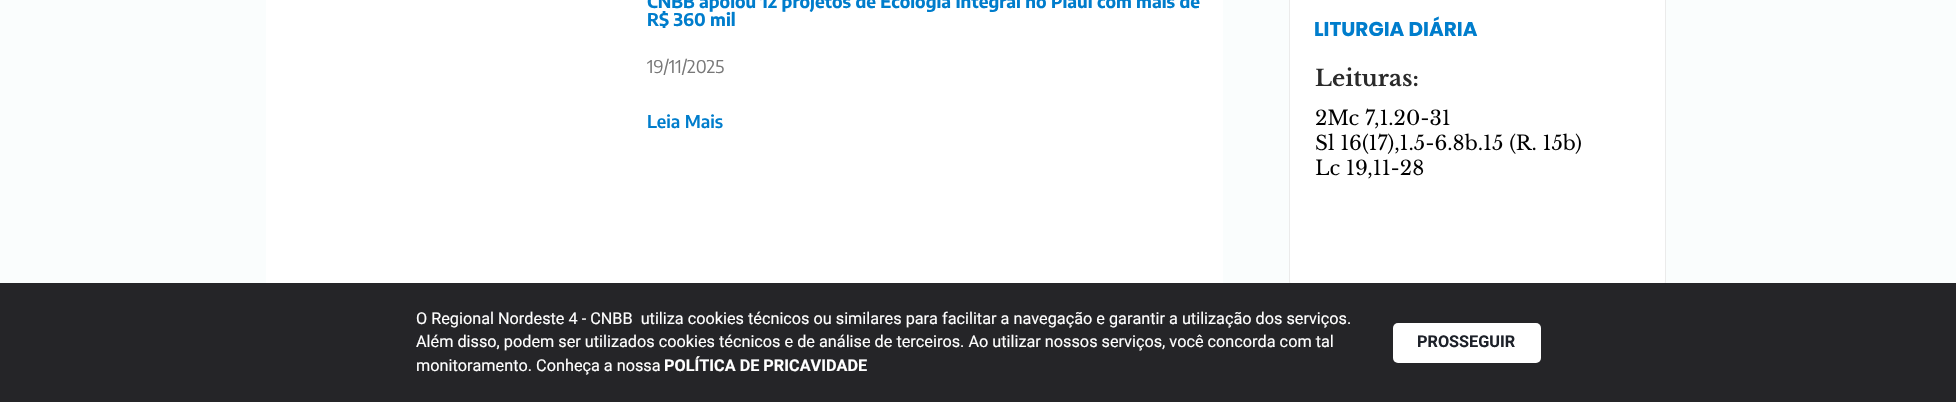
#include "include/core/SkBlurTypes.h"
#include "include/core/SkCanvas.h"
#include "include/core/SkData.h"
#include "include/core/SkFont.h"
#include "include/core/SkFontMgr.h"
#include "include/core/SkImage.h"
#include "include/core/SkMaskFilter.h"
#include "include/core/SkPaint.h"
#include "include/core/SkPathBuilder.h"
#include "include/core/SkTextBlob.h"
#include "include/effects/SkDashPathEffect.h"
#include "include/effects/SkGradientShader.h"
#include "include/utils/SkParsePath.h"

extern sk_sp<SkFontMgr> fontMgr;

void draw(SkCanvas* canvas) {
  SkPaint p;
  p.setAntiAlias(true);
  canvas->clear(SkColorSetRGB(250, 253, 253));
  p.setColor(SK_ColorWHITE);
  canvas->drawRect(SkRect::MakeLTRB(266, 0, 1223, 283), p);
  canvas->drawRect(SkRect::MakeLTRB(1289, 0, 1666, 283), p);
  p.setStyle(SkPaint::kStroke_Style);
  p.setStrokeWidth(1);
  p.setColor(SkColorSetRGB(235, 235, 235));
  canvas->drawRoundRect(SkRect::MakeLTRB(1289.5f, -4.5f, 1665.5f, 285.5f), 3.5f, 3.5f, p);
  canvas->drawImageRect(SkImages::DeferredFromEncodedData(SkData::MakeFromFileName("images/1.png")), SkRect::MakeLTRB(1315, 67, 1581, 179), SkSamplingOptions());
  p.setStyle(SkPaint::kFill_Style);
  p.setColor(SkColorSetRGB(37, 37, 40));
  canvas->drawRect(SkRect::MakeLTRB(0, 283, 1956, 402), p);
  p.setColor(SK_ColorWHITE);
  canvas->drawRoundRect(SkRect::MakeLTRB(1393, 323, 1541, 363), 5, 5, p);
  SkFont font1(fontMgr->matchFamilyStyle("Encode Sans Condensed", SkFontStyle::Bold()), 17.5f);
  font1.setSubpixel(true);
  p.setColor(SkColorSetRGB(0, 125, 204));
  canvas->drawString("CNBB apoiou 12 projetos de Ecologia Integral no Piauí com mais de", 647, 8, font1, p);
  canvas->drawString("R$ 360 mil", 647, 26, font1, p);
  SkFont font2(fontMgr->matchFamilyStyle("Encode Sans Condensed", SkFontStyle::Normal()), 17.5f);
  font2.setSubpixel(true);
  p.setColor(SkColorSetRGB(120, 120, 120));
  canvas->drawString("19/11/2025", 647, 73, font2, p);
  SkFont font3(fontMgr->matchFamilyStyle("Encode Sans Condensed", SkFontStyle(600, SkFontStyle::kNormal_Width, SkFontStyle::kUpright_Slant)), 17.5f);
  font3.setSubpixel(true);
  p.setColor(SkColorSetRGB(0, 125, 204));
  canvas->drawString("Leia Mais", 647, 128, font3, p);
  SkFont font4(fontMgr->matchFamilyStyle("Poppins", SkFontStyle::Bold()), 20);
  font4.setSubpixel(true);
  canvas->drawString("LITURGIA DIÁRIA", 1314, 36, font4, p);
  SkFont font5(fontMgr->matchFamilyStyle("Roboto", SkFontStyle::Normal()), 16.25f);
  font5.setSubpixel(true);
  p.setColor(SK_ColorWHITE);
  canvas->drawString("O Regional Nordeste 4 - CNBB  utiliza cookies técnicos ou similares para facilitar a navegação e garantir a utilização dos serviços.", 416, 324, font5, p);
  canvas->drawString("Além disso, podem ser utilizados cookies técnicos e de análise de terceiros. Ao utilizar nossos serviços, você concorda com tal", 416, 347, font5, p);
  canvas->drawString("monitoramento. Conheça a nossa", 416, 371, font5, p);
  SkFont font6(fontMgr->matchFamilyStyle("Roboto", SkFontStyle::Bold()), 16.25f);
  font6.setSubpixel(true);
  canvas->drawString("POLÍTICA DE PRICAVIDADE", 664, 371, font6, p);
  p.setColor(SkColorSetRGB(29, 33, 41));
  canvas->drawString("PROSSEGUIR", 1417, 347, font6, p);
}
